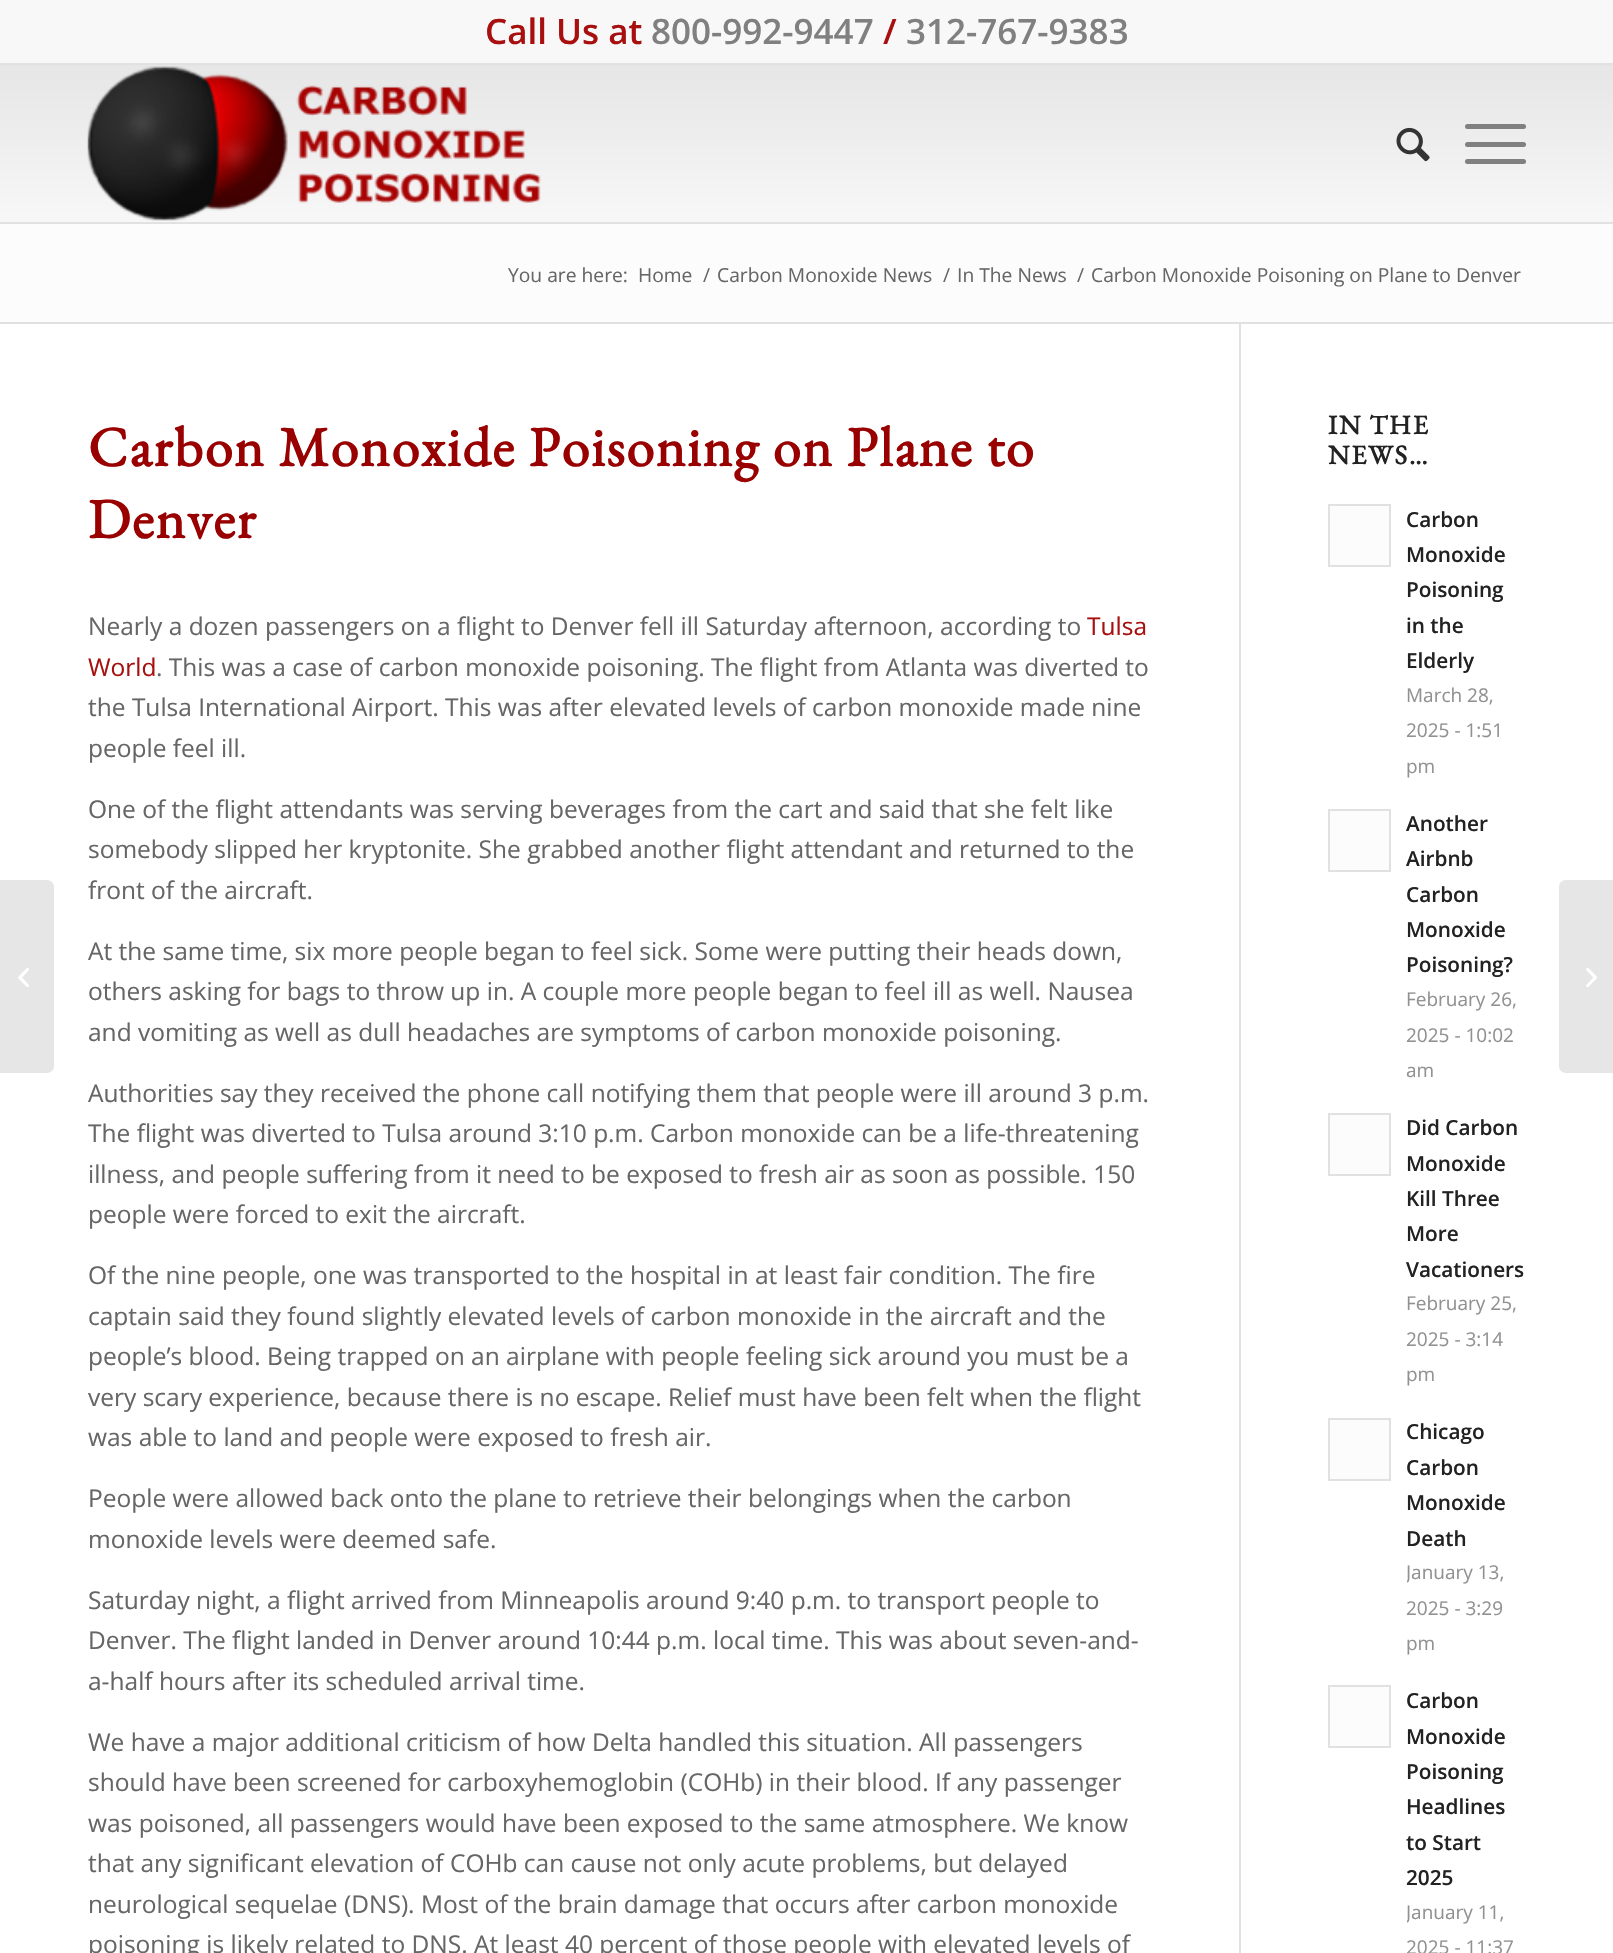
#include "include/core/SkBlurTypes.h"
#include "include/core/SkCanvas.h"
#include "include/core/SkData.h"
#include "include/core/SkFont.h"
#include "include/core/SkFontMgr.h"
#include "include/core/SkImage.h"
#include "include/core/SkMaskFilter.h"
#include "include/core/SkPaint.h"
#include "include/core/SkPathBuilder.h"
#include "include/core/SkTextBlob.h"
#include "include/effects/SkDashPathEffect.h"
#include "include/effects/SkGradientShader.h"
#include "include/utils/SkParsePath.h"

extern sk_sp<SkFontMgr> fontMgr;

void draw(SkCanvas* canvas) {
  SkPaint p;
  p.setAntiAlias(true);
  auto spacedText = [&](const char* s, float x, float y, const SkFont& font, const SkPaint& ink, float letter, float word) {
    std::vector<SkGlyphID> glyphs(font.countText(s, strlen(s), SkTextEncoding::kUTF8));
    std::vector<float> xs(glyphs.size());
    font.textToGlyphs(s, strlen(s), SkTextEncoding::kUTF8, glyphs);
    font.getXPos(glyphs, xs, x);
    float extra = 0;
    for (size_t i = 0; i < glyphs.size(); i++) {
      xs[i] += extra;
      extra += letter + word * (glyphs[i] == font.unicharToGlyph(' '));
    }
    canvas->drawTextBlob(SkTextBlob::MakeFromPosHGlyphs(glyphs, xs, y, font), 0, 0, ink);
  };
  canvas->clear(SK_ColorWHITE);
  p.setColor(SkColorSetRGB(248, 248, 248));
  canvas->drawRect(SkRect::MakeLTRB(0, 0, 1613, 63), p);
  p.setColor(SkColorSetRGB(225, 225, 225));
  canvas->drawRect(SkRect::MakeLTRB(0, 63, 1613, 65), p);
  canvas->drawImageRect(SkImages::DeferredFromEncodedData(SkData::MakeFromFileName("images/1.png")), SkRect::MakeLTRB(0, 65, 1613, 222), SkSamplingOptions());
  canvas->drawRect(SkRect::MakeLTRB(0, 222, 1613, 224), p);
  canvas->drawImageRect(SkImages::DeferredFromEncodedData(SkData::MakeFromFileName("images/2.png")), SkRect::MakeLTRB(87, 66, 541, 221), SkSamplingOptions());
  canvas->drawImageRect(SkImages::DeferredFromEncodedData(SkData::MakeFromFileName("images/3.png")), SkRect::MakeLTRB(1396, 127, 1430, 162), SkSamplingOptions());
  p.setColor(SkColorSetRGB(128, 128, 128));
  canvas->drawRoundRect(SkRect::MakeLTRB(1465, 142, 1526, 147), 2.5f, 2.5f, p);
  canvas->drawRoundRect(SkRect::MakeLTRB(1465, 124, 1526, 129), 2.5f, 2.5f, p);
  canvas->drawRoundRect(SkRect::MakeLTRB(1465, 159, 1526, 164), 2.5f, 2.5f, p);
  p.setColor(SkColorSetRGB(230, 230, 230));
  canvas->drawPath(SkPathBuilder().moveTo(0, 880).lineTo(47, 880).cubicTo(51, 880, 54, 883, 54, 887).lineTo(54, 1066).cubicTo(54, 1070, 51, 1073, 47, 1073).lineTo(0, 1073).close().detach(), p);
  canvas->drawImageRect(SkImages::DeferredFromEncodedData(SkData::MakeFromFileName("images/4.png")), SkRect::MakeLTRB(18, 967, 29, 988), SkSamplingOptions());
  p.setColor(SkColorSetRGB(252, 252, 252));
  canvas->drawRect(SkRect::MakeLTRB(0, 224, 1613, 322), p);
  p.setColor(SkColorSetRGB(225, 225, 225));
  canvas->drawRect(SkRect::MakeLTRB(0, 322, 1613, 324), p);
  canvas->drawRect(SkRect::MakeLTRB(1239, 324, 1241, 1953), p);
  p.setColor(SkColorSetRGB(252, 252, 252));
  canvas->drawRect(SkRect::MakeLTRB(1329, 505, 1390, 566), p);
  p.setStyle(SkPaint::kStroke_Style);
  p.setStrokeWidth(2);
  p.setColor(SkColorSetRGB(225, 225, 225));
  canvas->drawRect(SkRect::MakeLTRB(1329, 505, 1390, 566), p);
  p.setStyle(SkPaint::kFill_Style);
  p.setColor(SkColorSetRGB(252, 252, 252));
  canvas->drawRect(SkRect::MakeLTRB(1329, 810, 1390, 871), p);
  p.setStyle(SkPaint::kStroke_Style);
  p.setColor(SkColorSetRGB(225, 225, 225));
  canvas->drawRect(SkRect::MakeLTRB(1329, 810, 1390, 871), p);
  p.setStyle(SkPaint::kFill_Style);
  p.setColor(SkColorSetRGB(252, 252, 252));
  canvas->drawRect(SkRect::MakeLTRB(1329, 1114, 1390, 1175), p);
  p.setStyle(SkPaint::kStroke_Style);
  p.setColor(SkColorSetRGB(225, 225, 225));
  canvas->drawRect(SkRect::MakeLTRB(1329, 1114, 1390, 1175), p);
  p.setStyle(SkPaint::kFill_Style);
  p.setColor(SkColorSetRGB(252, 252, 252));
  canvas->drawRect(SkRect::MakeLTRB(1329, 1419, 1390, 1480), p);
  p.setStyle(SkPaint::kStroke_Style);
  p.setColor(SkColorSetRGB(225, 225, 225));
  canvas->drawRect(SkRect::MakeLTRB(1329, 1419, 1390, 1480), p);
  p.setStyle(SkPaint::kFill_Style);
  p.setColor(SkColorSetRGB(252, 252, 252));
  canvas->drawRect(SkRect::MakeLTRB(1329, 1686, 1390, 1747), p);
  p.setStyle(SkPaint::kStroke_Style);
  p.setColor(SkColorSetRGB(225, 225, 225));
  canvas->drawRect(SkRect::MakeLTRB(1329, 1686, 1390, 1747), p);
  p.setStyle(SkPaint::kFill_Style);
  p.setColor(SkColorSetRGB(230, 230, 230));
  canvas->drawPath(SkPathBuilder().moveTo(1566, 880).lineTo(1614, 880).lineTo(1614, 1073).lineTo(1566, 1073).cubicTo(1562, 1073, 1559, 1070, 1559, 1066).lineTo(1559, 887).cubicTo(1559, 883, 1562, 880, 1566, 880).close().detach(), p);
  canvas->drawImageRect(SkImages::DeferredFromEncodedData(SkData::MakeFromFileName("images/5.png")), SkRect::MakeLTRB(1586, 967, 1597, 988), SkSamplingOptions());
  SkFont font1(fontMgr->matchFamilyStyle("Open Sans", SkFontStyle(600, SkFontStyle::kNormal_Width, SkFontStyle::kUpright_Slant)), 35);
  font1.setSubpixel(true);
  p.setColor(SkColorSetRGB(168, 16, 16));
  canvas->drawString("Call Us at", 485, 44, font1, p);
  p.setColor(SkColorSetRGB(128, 128, 128));
  canvas->drawString("800-992-9447", 651, 44, font1, p);
  p.setColor(SkColorSetRGB(168, 16, 16));
  canvas->drawString("/", 883, 44, font1, p);
  p.setColor(SkColorSetRGB(128, 128, 128));
  canvas->drawString("312-767-9383", 906, 44, font1, p);
  SkFont font2(fontMgr->matchFamilyStyle("Open Sans", SkFontStyle::Normal()), 19.25f);
  font2.setSubpixel(true);
  p.setColor(SkColorSetRGB(102, 102, 102));
  canvas->drawString("You are here:", 508, 282, font2, p);
  canvas->drawString("Home", 638, 282, font2, p);
  canvas->drawString("/", 703, 282, font2, p);
  canvas->drawString("Carbon Monoxide News", 717, 282, font2, p);
  canvas->drawString("/", 943, 282, font2, p);
  canvas->drawString("In The News", 957, 282, font2, p);
  canvas->drawString("/", 1077, 282, font2, p);
  canvas->drawString("Carbon Monoxide Poisoning on Plane to Denver", 1091, 282, font2, p);
  SkFont font3(fontMgr->matchFamilyStyle("EB Garamond", SkFontStyle::Bold()), 56);
  font3.setSubpixel(true);
  p.setColor(SkColorSetRGB(153, 0, 0));
  spacedText("Carbon Monoxide Poisoning on Plane to", 88, 466, font3, p, 1.75f, 0);
  spacedText("Denver", 88, 538, font3, p, 1.75f, 0);
  SkFont font4(fontMgr->matchFamilyStyle("Open Sans", SkFontStyle::Normal()), 24.5f);
  font4.setSubpixel(true);
  p.setColor(SkColorSetRGB(102, 102, 102));
  canvas->drawString("Nearly a dozen passengers on a flight to Denver fell ill Saturday afternoon, according to", 88, 635, font4, p);
  p.setColor(SkColorSetRGB(168, 16, 16));
  canvas->drawString("Tulsa", 1087, 635, font4, p);
  canvas->drawString("World", 88, 676, font4, p);
  p.setColor(SkColorSetRGB(102, 102, 102));
  canvas->drawString(". This was a case of carbon monoxide poisoning. The flight from Atlanta was diverted to", 156, 676, font4, p);
  canvas->drawString("the Tulsa International Airport. This was after elevated levels of carbon monoxide made nine", 88, 716, font4, p);
  canvas->drawString("people feel ill.", 88, 757, font4, p);
  canvas->drawString("One of the flight attendants was serving beverages from the cart and said that she felt like", 88, 818, font4, p);
  canvas->drawString("somebody slipped her kryptonite. She grabbed another flight attendant and returned to the", 88, 858, font4, p);
  canvas->drawString("front of the aircraft.", 88, 899, font4, p);
  canvas->drawString("At the same time, six more people began to feel sick. Some were putting their heads down,", 88, 960, font4, p);
  canvas->drawString("others asking for bags to throw up in. A couple more people began to feel ill as well. Nausea", 88, 1000, font4, p);
  canvas->drawString("and vomiting as well as dull headaches are symptoms of carbon monoxide poisoning.", 88, 1041, font4, p);
  canvas->drawString("Authorities say they received the phone call notifying them that people were ill around 3 p.m.", 88, 1102, font4, p);
  canvas->save();
  canvas->clipRect(SkRect::MakeLTRB(88, 411, 1239, 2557));
  canvas->drawString("The flight was diverted to Tulsa around 3:10 p.m. Carbon monoxide can be a life-threatening", 88, 1142, font4, p);
  canvas->restore();
  canvas->drawString("illness, and people suffering from it need to be exposed to fresh air as soon as possible. 150", 88, 1183, font4, p);
  canvas->drawString("people were forced to exit the aircraft.", 88, 1223, font4, p);
  canvas->drawString("Of the nine people, one was transported to the hospital in at least fair condition. The fire", 88, 1284, font4, p);
  canvas->drawString("captain said they found slightly elevated levels of carbon monoxide in the aircraft and the", 88, 1325, font4, p);
  canvas->drawString("people’s blood. Being trapped on an airplane with people feeling sick around you must be a", 88, 1365, font4, p);
  canvas->drawString("very scary experience, because there is no escape. Relief must have been felt when the flight", 88, 1406, font4, p);
  canvas->drawString("was able to land and people were exposed to fresh air.", 88, 1446, font4, p);
  canvas->drawString("People were allowed back onto the plane to retrieve their belongings when the carbon", 88, 1507, font4, p);
  canvas->drawString("monoxide levels were deemed safe.", 88, 1548, font4, p);
  canvas->drawString("Saturday night, a flight arrived from Minneapolis around 9:40 p.m. to transport people to", 88, 1609, font4, p);
  canvas->drawString("Denver. The flight landed in Denver around 10:44 p.m. local time. This was about seven-and-", 88, 1649, font4, p);
  canvas->drawString("a-half hours after its scheduled arrival time.", 88, 1690, font4, p);
  canvas->drawString("We have a major additional criticism of how Delta handled this situation. All passengers", 88, 1751, font4, p);
  canvas->drawString("should have been screened for carboxyhemoglobin (COHb) in their blood. If any passenger", 88, 1791, font4, p);
  canvas->drawString("was poisoned, all passengers would have been exposed to the same atmosphere. We know", 88, 1832, font4, p);
  canvas->drawString("that any significant elevation of COHb can cause not only acute problems, but delayed", 88, 1872, font4, p);
  canvas->drawString("neurological sequelae (DNS). Most of the brain damage that occurs after carbon monoxide", 88, 1913, font4, p);
  canvas->drawString("poisoning is likely related to DNS. At least 40 percent of those people with elevated levels of", 88, 1953, font4, p);
  SkFont font5(fontMgr->matchFamilyStyle("EB Garamond", SkFontStyle::Bold()), 27);
  font5.setSubpixel(true);
  p.setColor(SkColorSetRGB(34, 34, 34));
  spacedText("IN THE", 1328, 434, font5, p, 1.75f, 0);
  spacedText("NEWS…", 1328, 464, font5, p, 1.75f, 0);
  SkFont font6(fontMgr->matchFamilyStyle("Open Sans", SkFontStyle(600, SkFontStyle::kNormal_Width, SkFontStyle::kUpright_Slant)), 20.75f);
  font6.setSubpixel(true);
  canvas->drawString("Carbon", 1406, 527, font6, p);
  canvas->drawString("Monoxide", 1406, 562, font6, p);
  canvas->drawString("Poisoning", 1406, 597, font6, p);
  canvas->drawString("in the", 1406, 633, font6, p);
  canvas->drawString("Elderly", 1406, 668, font6, p);
  SkFont font7(fontMgr->matchFamilyStyle("Open Sans", SkFontStyle::Normal()), 19);
  font7.setSubpixel(true);
  p.setColor(SkColorSetRGB(145, 145, 145));
  canvas->drawString("March 28,", 1406, 702, font7, p);
  canvas->drawString("2025 - 1:51", 1406, 737, font7, p);
  canvas->drawString("pm", 1406, 773, font7, p);
  p.setColor(SkColorSetRGB(34, 34, 34));
  canvas->drawString("Another", 1406, 831, font6, p);
  canvas->drawString("Airbnb", 1406, 866, font6, p);
  canvas->drawString("Carbon", 1406, 902, font6, p);
  canvas->drawString("Monoxide", 1406, 937, font6, p);
  canvas->drawString("Poisoning?", 1406, 972, font6, p);
  p.setColor(SkColorSetRGB(145, 145, 145));
  canvas->drawString("February 26,", 1406, 1006, font7, p);
  canvas->drawString("2025 - 10:02", 1406, 1042, font7, p);
  canvas->drawString("am", 1406, 1077, font7, p);
  p.setColor(SkColorSetRGB(34, 34, 34));
  canvas->drawString("Did Carbon", 1406, 1135, font6, p);
  canvas->drawString("Monoxide", 1406, 1171, font6, p);
  canvas->drawString("Kill Three", 1406, 1206, font6, p);
  canvas->drawString("More", 1406, 1241, font6, p);
  canvas->drawString("Vacationers", 1406, 1277, font6, p);
  p.setColor(SkColorSetRGB(145, 145, 145));
  canvas->drawString("February 25,", 1406, 1310, font7, p);
  canvas->drawString("2025 - 3:14", 1406, 1346, font7, p);
  canvas->drawString("pm", 1406, 1381, font7, p);
  p.setColor(SkColorSetRGB(34, 34, 34));
  canvas->drawString("Chicago", 1406, 1439, font6, p);
  canvas->drawString("Carbon", 1406, 1475, font6, p);
  canvas->drawString("Monoxide", 1406, 1510, font6, p);
  canvas->drawString("Death", 1406, 1546, font6, p);
  canvas->save();
  canvas->clipRect(SkRect::MakeLTRB(1407, 1414, 1526, 1661));
  p.setColor(SkColorSetRGB(145, 145, 145));
  canvas->drawString("January 13,", 1406, 1579, font7, p);
  canvas->restore();
  canvas->drawString("2025 - 3:29", 1406, 1615, font7, p);
  canvas->drawString("pm", 1406, 1650, font7, p);
  p.setColor(SkColorSetRGB(34, 34, 34));
  canvas->drawString("Carbon", 1406, 1708, font6, p);
  canvas->drawString("Monoxide", 1406, 1744, font6, p);
  canvas->drawString("Poisoning", 1406, 1779, font6, p);
  canvas->drawString("Headlines", 1406, 1814, font6, p);
  canvas->drawString("to Start", 1406, 1850, font6, p);
  canvas->drawString("2025", 1406, 1885, font6, p);
  canvas->save();
  canvas->clipRect(SkRect::MakeLTRB(1407, 1682, 1526, 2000));
  p.setColor(SkColorSetRGB(145, 145, 145));
  canvas->drawString("January 11,", 1406, 1919, font7, p);
  canvas->restore();
  canvas->drawString("2025 - 11:37", 1406, 1954, font7, p);
}
